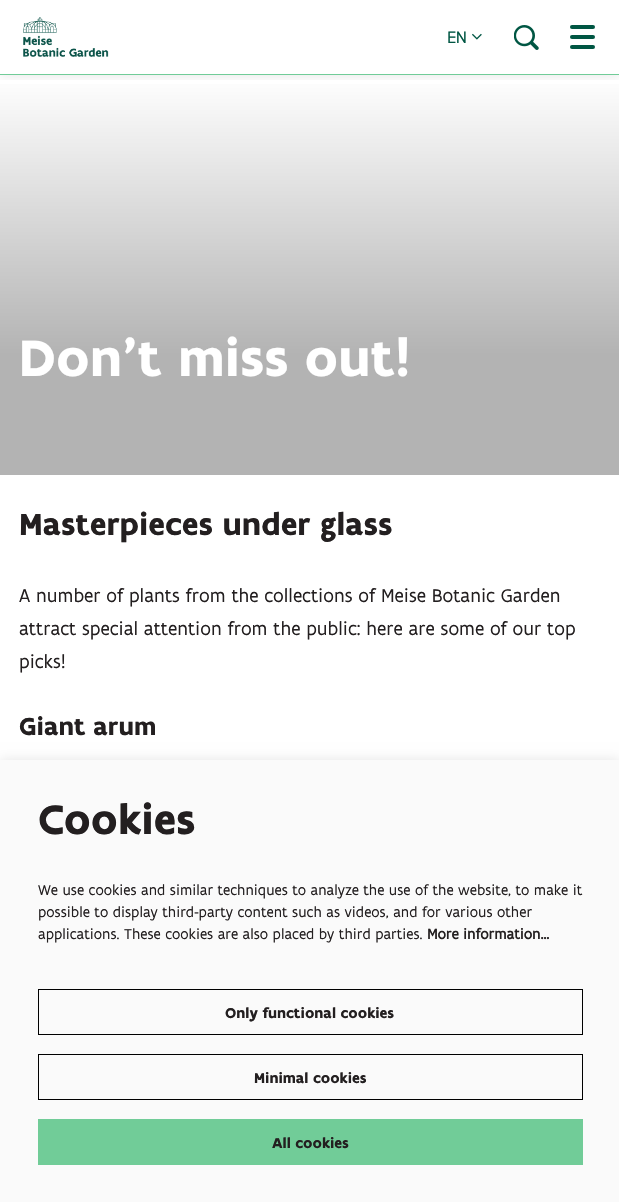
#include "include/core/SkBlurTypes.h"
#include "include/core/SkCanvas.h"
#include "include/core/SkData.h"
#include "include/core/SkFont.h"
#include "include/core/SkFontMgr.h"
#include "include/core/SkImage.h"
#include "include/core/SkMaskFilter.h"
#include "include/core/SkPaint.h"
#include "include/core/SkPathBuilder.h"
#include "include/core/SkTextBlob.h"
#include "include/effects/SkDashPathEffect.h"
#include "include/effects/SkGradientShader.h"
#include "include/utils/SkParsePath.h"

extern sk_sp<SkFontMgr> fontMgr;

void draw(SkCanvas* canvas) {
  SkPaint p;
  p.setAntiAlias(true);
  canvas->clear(SK_ColorWHITE);
  {
    const SkColor colors[] = {SkColorSetRGB(179, 179, 179), SkColorSetRGB(179, 179, 179), SK_ColorWHITE};
    const float stops[] = {0, 0.3f, 1};
    const SkPoint ends[] = {{310, 475}, {310, 75}};
    p.setShader(SkGradientShader::MakeLinear(ends, colors, stops, 3, SkTileMode::kClamp));
    p.setAlpha(255);
  }
  canvas->drawRect(SkRect::MakeLTRB(0, 84, 619, 475), p);
  canvas->save();
  canvas->clipRect(SkRect::MakeLTRB(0, 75, 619, 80));
  p.setShader(nullptr);
  p.setColor(SkColorSetARGB(26, 0, 0, 0));
  p.setMaskFilter(SkMaskFilter::MakeBlur(kNormal_SkBlurStyle, 6));
  canvas->drawRect(SkRect::MakeLTRB(0, 0, 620, 75), p);
  p.setMaskFilter(nullptr);
  canvas->restore();
  p.setColor(SkColorSetRGB(113, 204, 152));
  canvas->drawRect(SkRect::MakeLTRB(0, 74, 619, 75), p);
  canvas->drawImageRect(SkImages::DeferredFromEncodedData(SkData::MakeFromFileName("images/1.png")), SkRect::MakeLTRB(23, 17, 109, 57), SkSamplingOptions());
  canvas->drawImageRect(SkImages::DeferredFromEncodedData(SkData::MakeFromFileName("images/2.png")), SkRect::MakeLTRB(472, 33, 482, 40), SkSamplingOptions());
  canvas->drawImageRect(SkImages::DeferredFromEncodedData(SkData::MakeFromFileName("images/3.png")), SkRect::MakeLTRB(514, 25, 539, 50), SkSamplingOptions());
  p.setColor(SkColorSetRGB(0, 86, 67));
  canvas->drawRoundRect(SkRect::MakeLTRB(570, 25, 595, 29), 2, 2, p);
  canvas->drawRoundRect(SkRect::MakeLTRB(570, 35, 595, 39), 2, 2, p);
  canvas->drawRoundRect(SkRect::MakeLTRB(570, 45, 595, 49), 2, 2, p);
  p.setColor(SkColorSetARGB(26, 0, 0, 0));
  p.setMaskFilter(SkMaskFilter::MakeBlur(kNormal_SkBlurStyle, 6));
  canvas->drawRect(SkRect::MakeLTRB(0, 760, 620, 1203), p);
  p.setMaskFilter(nullptr);
  p.setColor(SkColorSetRGB(250, 250, 250));
  canvas->drawRect(SkRect::MakeLTRB(0, 760, 619, 1202), p);
  p.setStyle(SkPaint::kStroke_Style);
  p.setStrokeWidth(1);
  p.setColor(SK_ColorBLACK);
  canvas->drawRect(SkRect::MakeLTRB(38.5f, 989.5f, 582.5f, 1034.5f), p);
  canvas->drawRect(SkRect::MakeLTRB(38.5f, 1054.5f, 582.5f, 1099.5f), p);
  p.setStyle(SkPaint::kFill_Style);
  p.setColor(SkColorSetRGB(113, 204, 152));
  canvas->drawRect(SkRect::MakeLTRB(38, 1119, 583, 1165), p);
  SkFont font1(fontMgr->matchFamilyStyle("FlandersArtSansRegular", SkFontStyle::Normal()), 18);
  font1.setSubpixel(true);
  p.setColor(SkColorSetRGB(0, 86, 67));
  canvas->drawString("EN", 447, 43, font1, p);
  SkFont font2(fontMgr->matchFamilyStyle("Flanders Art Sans", SkFontStyle::Bold()), 54.75f);
  font2.setSubpixel(true);
  p.setColor(SK_ColorWHITE);
  canvas->drawString("Don't miss out!", 19, 376, font2, p);
  SkFont font3(fontMgr->matchFamilyStyle("Flanders Art Sans", SkFontStyle::Bold()), 32.75f);
  font3.setSubpixel(true);
  p.setColor(SkColorSetRGB(35, 31, 32));
  canvas->drawString("Masterpieces under glass", 19, 535, font3, p);
  SkFont font4(fontMgr->matchFamilyStyle("FlandersArtSansRegular", SkFontStyle::Normal()), 19.7f);
  font4.setSubpixel(true);
  canvas->drawString("A number of plants from the collections of Meise Botanic Garden", 19, 602, font4, p);
  canvas->drawString("attract special attention from the public: here are some of our top", 19, 635, font4, p);
  canvas->drawString("picks!", 19, 668, font4, p);
  SkFont font5(fontMgr->matchFamilyStyle("Flanders Art Sans", SkFontStyle::Bold()), 26.25f);
  font5.setSubpixel(true);
  canvas->drawString("Giant arum", 19, 735, font5, p);
  SkFont font6(fontMgr->matchFamilyStyle("Flanders Art Sans", SkFontStyle::Bold()), 44);
  font6.setSubpixel(true);
  canvas->drawString("Cookies", 38, 834, font6, p);
  SkFont font7(fontMgr->matchFamilyStyle("FlandersArtSansRegular", SkFontStyle::Normal()), 15.3f);
  font7.setSubpixel(true);
  canvas->drawString("We use cookies and similar techniques to analyze the use of the website, to make it", 38, 895, font7, p);
  canvas->drawString("possible to display third-party content such as videos, and for various other", 38, 917, font7, p);
  canvas->drawString("applications. These cookies are also placed by third parties.", 38, 939, font7, p);
  SkFont font8(fontMgr->matchFamilyStyle("FlandersArtSansRegular", SkFontStyle::Bold()), 15.3f);
  font8.setSubpixel(true);
  canvas->drawString("More information…", 427, 939, font8, p);
  SkFont font9(fontMgr->matchFamilyStyle("Flanders Art Sans", SkFontStyle::Bold()), 15.3f);
  font9.setSubpixel(true);
  canvas->drawString("Only functional cookies", 225, 1018, font9, p);
  canvas->drawString("Minimal cookies", 254, 1083, font9, p);
  canvas->drawString("All cookies", 272, 1148, font9, p);
}
